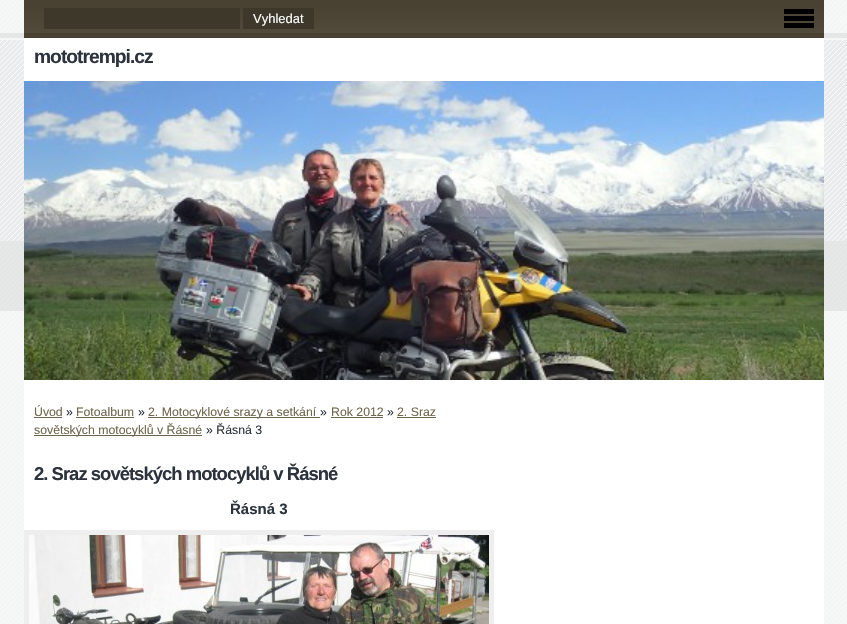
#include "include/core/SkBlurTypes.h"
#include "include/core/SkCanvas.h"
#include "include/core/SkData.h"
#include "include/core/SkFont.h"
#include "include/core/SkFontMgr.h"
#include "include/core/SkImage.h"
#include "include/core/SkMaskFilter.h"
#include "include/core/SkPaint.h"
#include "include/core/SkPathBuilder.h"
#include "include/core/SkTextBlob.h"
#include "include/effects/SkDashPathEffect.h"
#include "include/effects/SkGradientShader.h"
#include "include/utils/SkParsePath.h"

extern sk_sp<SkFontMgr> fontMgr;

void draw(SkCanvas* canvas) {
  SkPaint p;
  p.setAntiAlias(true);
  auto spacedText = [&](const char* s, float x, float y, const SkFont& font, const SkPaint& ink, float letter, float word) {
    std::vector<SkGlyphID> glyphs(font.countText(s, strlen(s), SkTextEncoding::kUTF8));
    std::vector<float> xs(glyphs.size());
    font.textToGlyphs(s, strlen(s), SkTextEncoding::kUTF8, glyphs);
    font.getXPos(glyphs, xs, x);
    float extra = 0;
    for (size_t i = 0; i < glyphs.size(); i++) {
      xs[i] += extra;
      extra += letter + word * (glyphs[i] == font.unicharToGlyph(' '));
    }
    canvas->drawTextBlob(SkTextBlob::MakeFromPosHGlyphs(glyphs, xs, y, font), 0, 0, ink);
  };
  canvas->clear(SK_ColorWHITE);
  canvas->drawImageRect(SkImages::DeferredFromEncodedData(SkData::MakeFromFileName("images/1.png")), SkRect::MakeLTRB(0, 311, 847, 624), SkSamplingOptions());
  canvas->drawImageRect(SkImages::DeferredFromEncodedData(SkData::MakeFromFileName("images/2.png")), SkRect::MakeLTRB(0, 0, 847, 311), SkSamplingOptions());
  p.setColor(SK_ColorWHITE);
  canvas->drawRect(SkRect::MakeLTRB(24, 39, 824, 624), p);
  canvas->drawImageRect(SkImages::DeferredFromEncodedData(SkData::MakeFromFileName("images/4.png")), SkRect::MakeLTRB(24, 0, 824, 39), SkSamplingOptions());
  p.setColor(SkColorSetRGB(62, 56, 42));
  canvas->drawRect(SkRect::MakeLTRB(44, 8, 240, 29), p);
  canvas->drawRect(SkRect::MakeLTRB(243, 8, 314, 29), p);
  p.setColor(SK_ColorBLACK);
  canvas->drawRect(SkRect::MakeLTRB(784, 9, 814, 14), p);
  canvas->drawRect(SkRect::MakeLTRB(784, 16, 814, 21), p);
  canvas->drawRect(SkRect::MakeLTRB(784, 23, 814, 28), p);
  p.setColor(SkColorSetRGB(111, 101, 76));
  canvas->drawRect(SkRect::MakeLTRB(34, 417, 62, 418), p);
  canvas->drawRect(SkRect::MakeLTRB(76, 417, 134, 418), p);
  canvas->drawRect(SkRect::MakeLTRB(148, 417, 320, 418), p);
  canvas->drawRect(SkRect::MakeLTRB(331, 417, 383, 418), p);
  canvas->drawRect(SkRect::MakeLTRB(397, 417, 436, 418), p);
  canvas->drawRect(SkRect::MakeLTRB(34, 435, 202, 436), p);
  p.setStyle(SkPaint::kStroke_Style);
  p.setStrokeWidth(5);
  p.setColor(SkColorSetRGB(238, 238, 238));
  canvas->drawRect(SkRect::MakeLTRB(26.5f, 532.5f, 491.5f, 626.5f), p);
  canvas->drawImageRect(SkImages::DeferredFromEncodedData(SkData::MakeFromFileName("images/3.png")), SkRect::MakeLTRB(29, 535, 489, 624), SkSamplingOptions());
  canvas->drawImageRect(SkImages::DeferredFromEncodedData(SkData::MakeFromFileName("images/5.png")), SkRect::MakeLTRB(24, 81, 824, 380), SkSamplingOptions());
  SkFont font1(fontMgr->matchFamilyStyle("Liberation Sans", SkFontStyle::Normal()), 13);
  font1.setSubpixel(true);
  p.setStyle(SkPaint::kFill_Style);
  p.setColor(SK_ColorWHITE);
  canvas->drawString("Vyhledat", 253, 23, font1, p);
  SkFont font2(fontMgr->matchFamilyStyle("Liberation Sans", SkFontStyle::Normal()), 12.3f);
  font2.setSubpixel(true);
  p.setColor(SkColorSetRGB(111, 101, 76));
  canvas->drawString("Úvod", 34, 416, font2, p);
  p.setColor(SkColorSetRGB(44, 51, 61));
  canvas->drawString("»", 66, 416, font2, p);
  p.setColor(SkColorSetRGB(111, 101, 76));
  canvas->drawString("Fotoalbum", 76, 416, font2, p);
  p.setColor(SkColorSetRGB(44, 51, 61));
  canvas->drawString("»", 138, 416, font2, p);
  p.setColor(SkColorSetRGB(111, 101, 76));
  canvas->drawString("2. Motocyklové srazy a setkání", 148, 416, font2, p);
  p.setColor(SkColorSetRGB(44, 51, 61));
  canvas->drawString("»", 320, 416, font2, p);
  p.setColor(SkColorSetRGB(111, 101, 76));
  canvas->drawString("Rok 2012", 331, 416, font2, p);
  p.setColor(SkColorSetRGB(44, 51, 61));
  canvas->drawString("»", 387, 416, font2, p);
  p.setColor(SkColorSetRGB(111, 101, 76));
  canvas->drawString("2. Sraz", 397, 416, font2, p);
  canvas->drawString("sovětských motocyklů v Řásné", 34, 434, font2, p);
  p.setColor(SkColorSetRGB(44, 51, 61));
  canvas->drawString("» Řásná 3", 206, 434, font2, p);
  SkFont font3(fontMgr->matchFamilyStyle("Liberation Sans", SkFontStyle::Bold()), 18.5f);
  font3.setSubpixel(true);
  spacedText("2. Sraz sovětských motocyklů v Řásné", 34, 480, font3, p, -1, 0);
  SkFont font4(fontMgr->matchFamilyStyle("Liberation Sans", SkFontStyle::Bold()), 15);
  font4.setSubpixel(true);
  canvas->drawString("Řásná 3", 230, 514, font4, p);
  SkFont font5(fontMgr->matchFamilyStyle("Liberation Sans", SkFontStyle::Bold()), 19.25f);
  font5.setSubpixel(true);
  spacedText("mototrempi.cz", 34, 63, font5, p, -1, 0);
}
